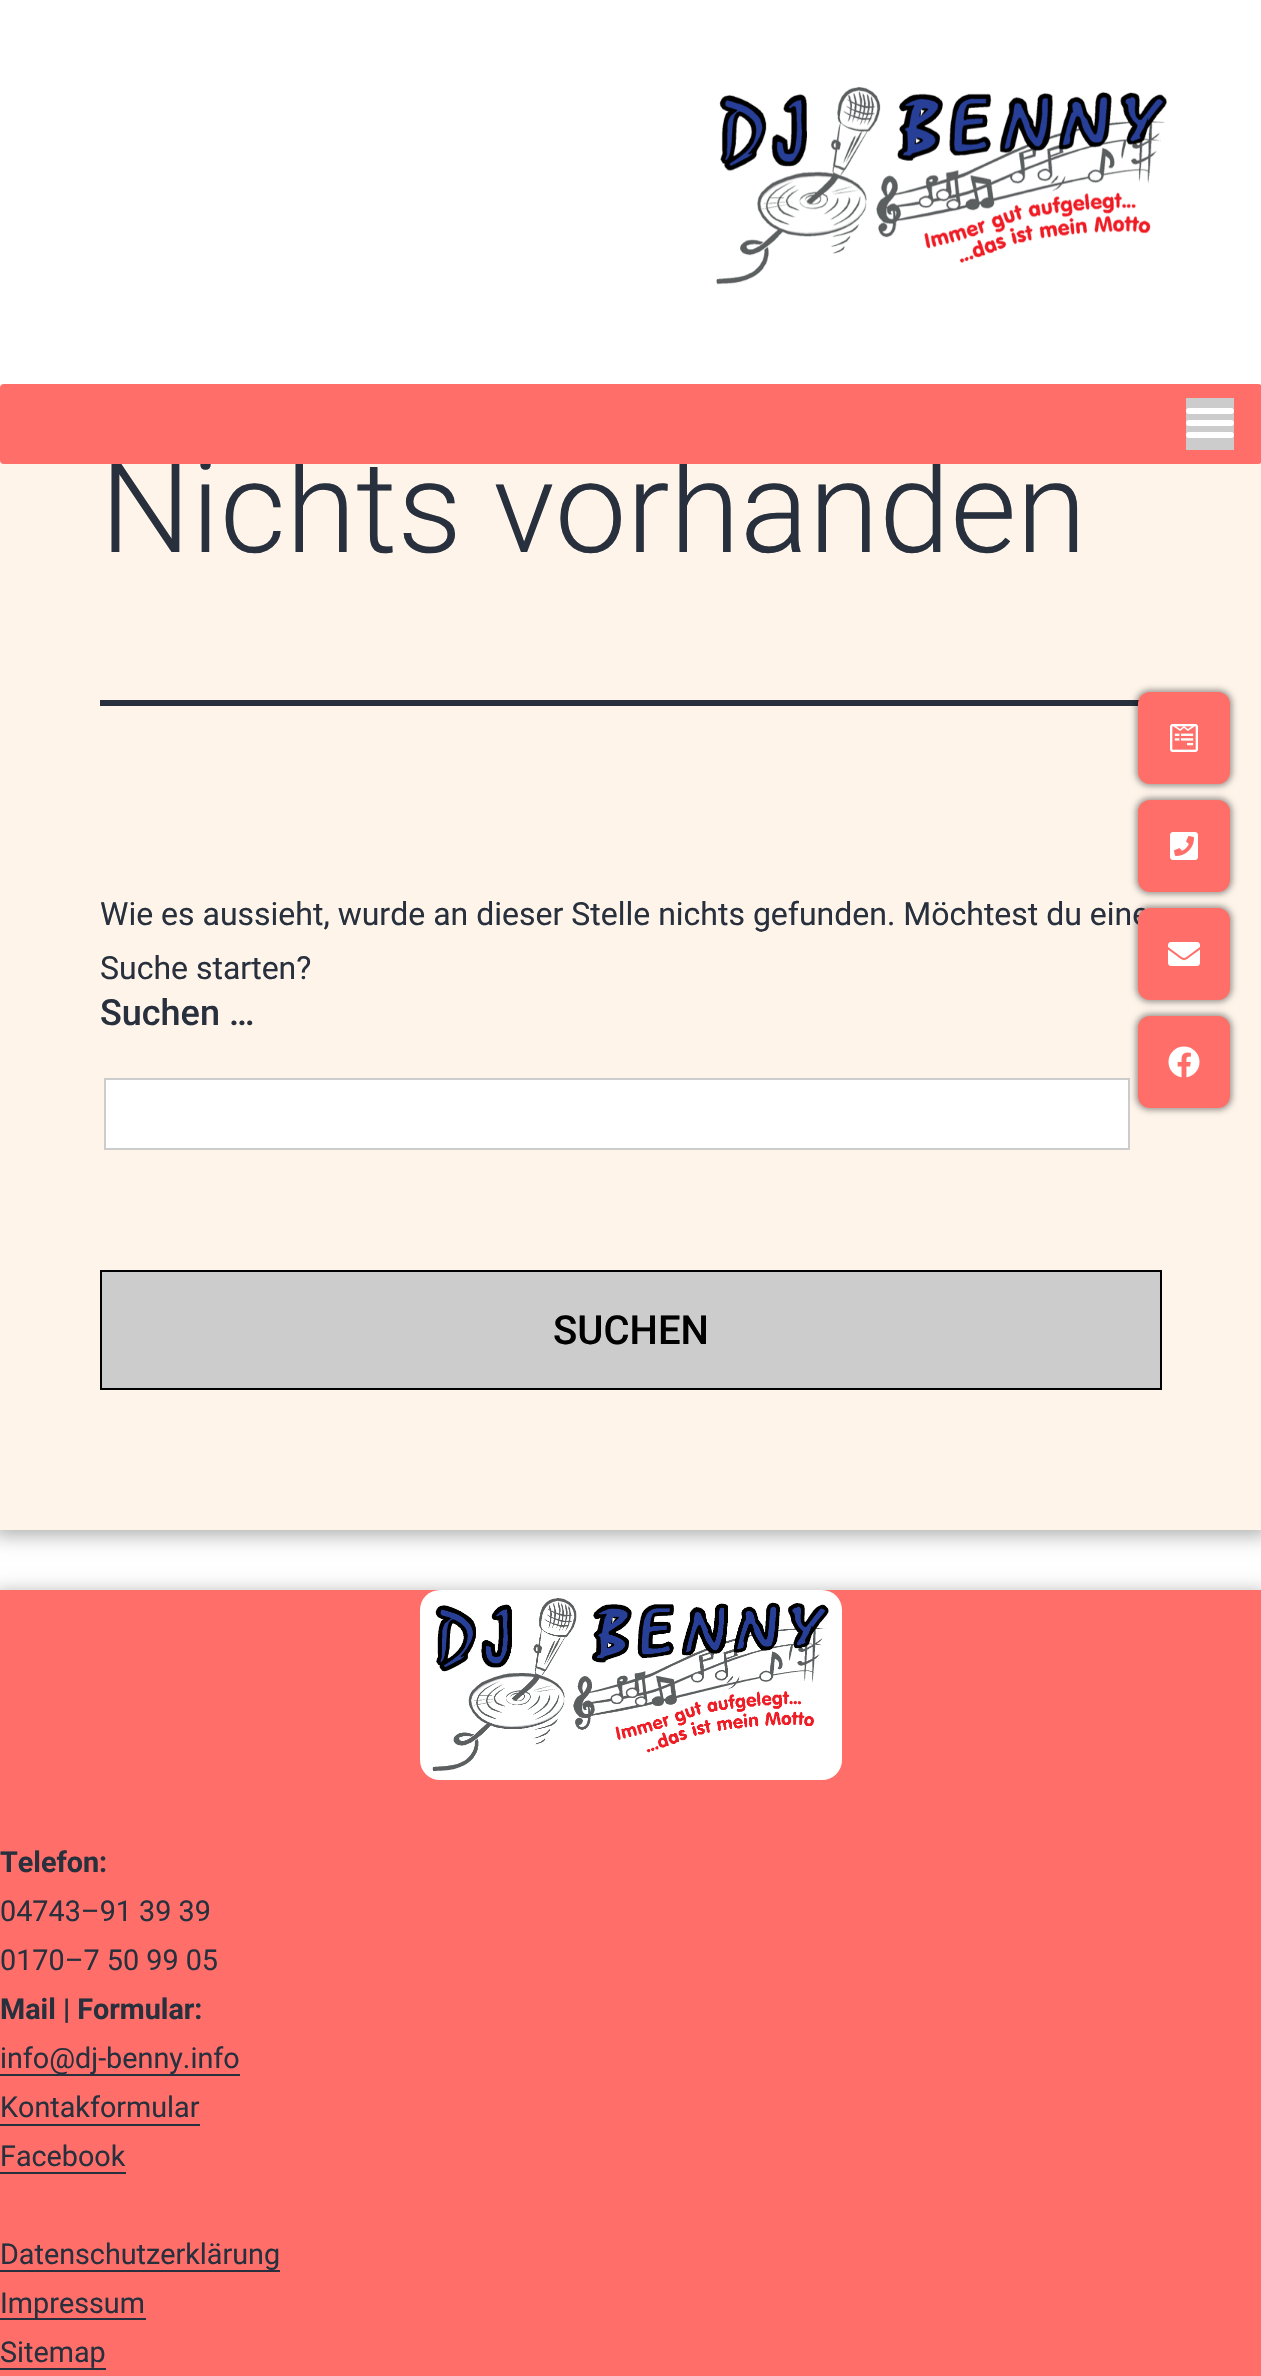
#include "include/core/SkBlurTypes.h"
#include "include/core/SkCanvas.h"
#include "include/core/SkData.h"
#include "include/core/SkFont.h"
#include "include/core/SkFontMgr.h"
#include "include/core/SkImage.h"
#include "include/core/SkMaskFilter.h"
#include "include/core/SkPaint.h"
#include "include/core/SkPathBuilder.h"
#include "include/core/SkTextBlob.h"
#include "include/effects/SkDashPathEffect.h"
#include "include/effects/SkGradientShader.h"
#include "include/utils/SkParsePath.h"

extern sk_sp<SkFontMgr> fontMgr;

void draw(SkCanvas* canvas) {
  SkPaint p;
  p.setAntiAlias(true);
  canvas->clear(SK_ColorWHITE);
  canvas->drawImageRect(SkImages::DeferredFromEncodedData(SkData::MakeFromFileName("images/1.png")), SkRect::MakeLTRB(716, 86, 1167, 285), SkSamplingOptions());
  p.setColor(SkColorSetARGB(77, 0, 0, 0));
  p.setMaskFilter(SkMaskFilter::MakeBlur(kNormal_SkBlurStyle, 9));
  canvas->drawRect(SkRect::MakeLTRB(-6, 434, 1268, 1536), p);
  p.setMaskFilter(nullptr);
  p.setColor(SkColorSetRGB(254, 244, 234));
  canvas->drawRect(SkRect::MakeLTRB(0, 460, 1261, 1530), p);
  p.setColor(SkColorSetRGB(40, 48, 61));
  canvas->drawRect(SkRect::MakeLTRB(100, 700, 1139, 706), p);
  p.setColor(SK_ColorWHITE);
  canvas->drawRect(SkRect::MakeLTRB(105, 1079, 1129, 1149), p);
  p.setStyle(SkPaint::kStroke_Style);
  p.setStrokeWidth(2);
  p.setColor(SkColorSetRGB(204, 204, 204));
  canvas->drawRect(SkRect::MakeLTRB(105, 1079, 1129, 1149), p);
  p.setStyle(SkPaint::kFill_Style);
  canvas->drawRect(SkRect::MakeLTRB(101, 1271, 1161, 1389), p);
  p.setStyle(SkPaint::kStroke_Style);
  p.setColor(SK_ColorBLACK);
  canvas->drawRect(SkRect::MakeLTRB(101, 1271, 1161, 1389), p);
  p.setStyle(SkPaint::kFill_Style);
  p.setColor(SkColorSetARGB(77, 0, 0, 0));
  p.setMaskFilter(SkMaskFilter::MakeBlur(kNormal_SkBlurStyle, 9));
  canvas->drawRect(SkRect::MakeLTRB(-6, 1592, 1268, 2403), p);
  p.setMaskFilter(nullptr);
  p.setColor(SkColorSetRGB(255, 110, 104));
  canvas->drawRect(SkRect::MakeLTRB(0, 1590, 1261, 2376), p);
  canvas->drawImageRect(SkImages::DeferredFromEncodedData(SkData::MakeFromFileName("images/2.png")), SkRect::MakeLTRB(420, 1590, 842, 1780), SkSamplingOptions());
  p.setColor(SkColorSetRGB(40, 48, 61));
  canvas->drawRect(SkRect::MakeLTRB(0, 2074, 240, 2076), p);
  canvas->drawRect(SkRect::MakeLTRB(0, 2124, 200, 2126), p);
  canvas->drawRect(SkRect::MakeLTRB(0, 2172, 126, 2174), p);
  canvas->drawRect(SkRect::MakeLTRB(0, 2270, 280, 2272), p);
  canvas->drawRect(SkRect::MakeLTRB(0, 2318, 146, 2320), p);
  canvas->drawRect(SkRect::MakeLTRB(0, 2368, 106, 2370), p);
  p.setColor(SkColorSetARGB(102, 0, 0, 0));
  p.setMaskFilter(SkMaskFilter::MakeBlur(kNormal_SkBlurStyle, 3));
  canvas->drawRoundRect(SkRect::MakeLTRB(1136, 690, 1232, 786), 14, 14, p);
  p.setMaskFilter(nullptr);
  p.setColor(SkColorSetRGB(255, 110, 104));
  canvas->drawRoundRect(SkRect::MakeLTRB(1138, 692, 1230, 784), 12, 12, p);
  canvas->drawImageRect(SkImages::DeferredFromEncodedData(SkData::MakeFromFileName("images/3.png")), SkRect::MakeLTRB(1170, 724, 1198, 752), SkSamplingOptions());
  p.setColor(SkColorSetARGB(102, 0, 0, 0));
  p.setMaskFilter(SkMaskFilter::MakeBlur(kNormal_SkBlurStyle, 3));
  canvas->drawRoundRect(SkRect::MakeLTRB(1136, 798, 1232, 894), 14, 14, p);
  p.setMaskFilter(nullptr);
  p.setColor(SkColorSetRGB(255, 110, 104));
  canvas->drawRoundRect(SkRect::MakeLTRB(1138, 800, 1230, 892), 12, 12, p);
  canvas->drawImageRect(SkImages::DeferredFromEncodedData(SkData::MakeFromFileName("images/4.png")), SkRect::MakeLTRB(1170, 832, 1198, 860), SkSamplingOptions());
  p.setColor(SkColorSetARGB(102, 0, 0, 0));
  p.setMaskFilter(SkMaskFilter::MakeBlur(kNormal_SkBlurStyle, 3));
  canvas->drawRoundRect(SkRect::MakeLTRB(1136, 906, 1232, 1002), 14, 14, p);
  p.setMaskFilter(nullptr);
  p.setMaskFilter(SkMaskFilter::MakeBlur(kNormal_SkBlurStyle, 3));
  canvas->drawRoundRect(SkRect::MakeLTRB(1136, 1014, 1232, 1110), 14, 14, p);
  p.setMaskFilter(nullptr);
  p.setColor(SkColorSetRGB(255, 110, 104));
  canvas->drawRoundRect(SkRect::MakeLTRB(1138, 1016, 1230, 1108), 12, 12, p);
  canvas->drawImageRect(SkImages::DeferredFromEncodedData(SkData::MakeFromFileName("images/6.png")), SkRect::MakeLTRB(1168, 1046, 1200, 1078), SkSamplingOptions());
  SkFont font1(fontMgr->matchFamilyStyle("Roboto", SkFontStyle(300, SkFontStyle::kNormal_Width, SkFontStyle::kUpright_Slant)), 128);
  font1.setSubpixel(true);
  p.setColor(SkColorSetRGB(40, 48, 61));
  canvas->drawString("Nichts vorhanden", 100, 552, font1, p);
  p.setColor(SkColorSetRGB(255, 110, 104));
  canvas->drawRoundRect(SkRect::MakeLTRB(0, 384, 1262, 464), 4, 4, p);
  p.setColor(SkColorSetRGB(204, 204, 204));
  canvas->drawRect(SkRect::MakeLTRB(1186, 398, 1234, 450), p);
  p.setColor(SK_ColorWHITE);
  canvas->drawRoundRect(SkRect::MakeLTRB(1186, 432, 1234, 438), 3, 3, p);
  canvas->drawRoundRect(SkRect::MakeLTRB(1186, 420, 1234, 426), 3, 3, p);
  canvas->drawRoundRect(SkRect::MakeLTRB(1186, 408, 1234, 414), 3, 3, p);
  SkFont font2(fontMgr->matchFamilyStyle("Roboto", SkFontStyle::Normal()), 32);
  font2.setSubpixel(true);
  p.setColor(SkColorSetRGB(40, 48, 61));
  canvas->drawString("Wie es aussieht, wurde an dieser Stelle nichts gefunden. Möchtest du eine", 100, 925, font2, p);
  canvas->drawString("Suche starten?", 100, 979, font2, p);
  SkFont font3(fontMgr->matchFamilyStyle("Roboto", SkFontStyle(500, SkFontStyle::kNormal_Width, SkFontStyle::kUpright_Slant)), 36);
  font3.setSubpixel(true);
  canvas->drawString("Suchen …", 100, 1025, font3, p);
  SkFont font4(fontMgr->matchFamilyStyle("Roboto", SkFontStyle(500, SkFontStyle::kNormal_Width, SkFontStyle::kUpright_Slant)), 40);
  font4.setSubpixel(true);
  p.setColor(SK_ColorBLACK);
  canvas->drawString("SUCHEN", 553, 1344, font4, p);
  SkFont font5(fontMgr->matchFamilyStyle("Roboto", SkFontStyle::Bold()), 28.75f);
  font5.setSubpixel(true);
  p.setColor(SkColorSetRGB(40, 48, 61));
  canvas->drawString("Telefon:", 0, 1872, font5, p);
  SkFont font6(fontMgr->matchFamilyStyle("Roboto", SkFontStyle::Normal()), 28.75f);
  font6.setSubpixel(true);
  canvas->drawString("04743–91 39 39", 0, 1921, font6, p);
  canvas->drawString("0170–7 50 99 05", 0, 1970, font6, p);
  canvas->drawString("Mail | Formular:", 0, 2019, font5, p);
  canvas->drawString("info@dj-benny.info", 0, 2068, font6, p);
  canvas->drawString("Kontakformular", 0, 2117, font6, p);
  canvas->drawString("Facebook", 0, 2166, font6, p);
  canvas->drawString("Datenschutzerklärung", 0, 2264, font6, p);
  canvas->drawString("Impressum", 0, 2313, font6, p);
  canvas->drawString("Sitemap", 0, 2362, font6, p);
  p.setColor(SkColorSetRGB(255, 110, 104));
  canvas->drawRoundRect(SkRect::MakeLTRB(1138, 908, 1230, 1000), 12, 12, p);
  canvas->drawImageRect(SkImages::DeferredFromEncodedData(SkData::MakeFromFileName("images/5.png")), SkRect::MakeLTRB(1168, 942, 1200, 966), SkSamplingOptions());
}
